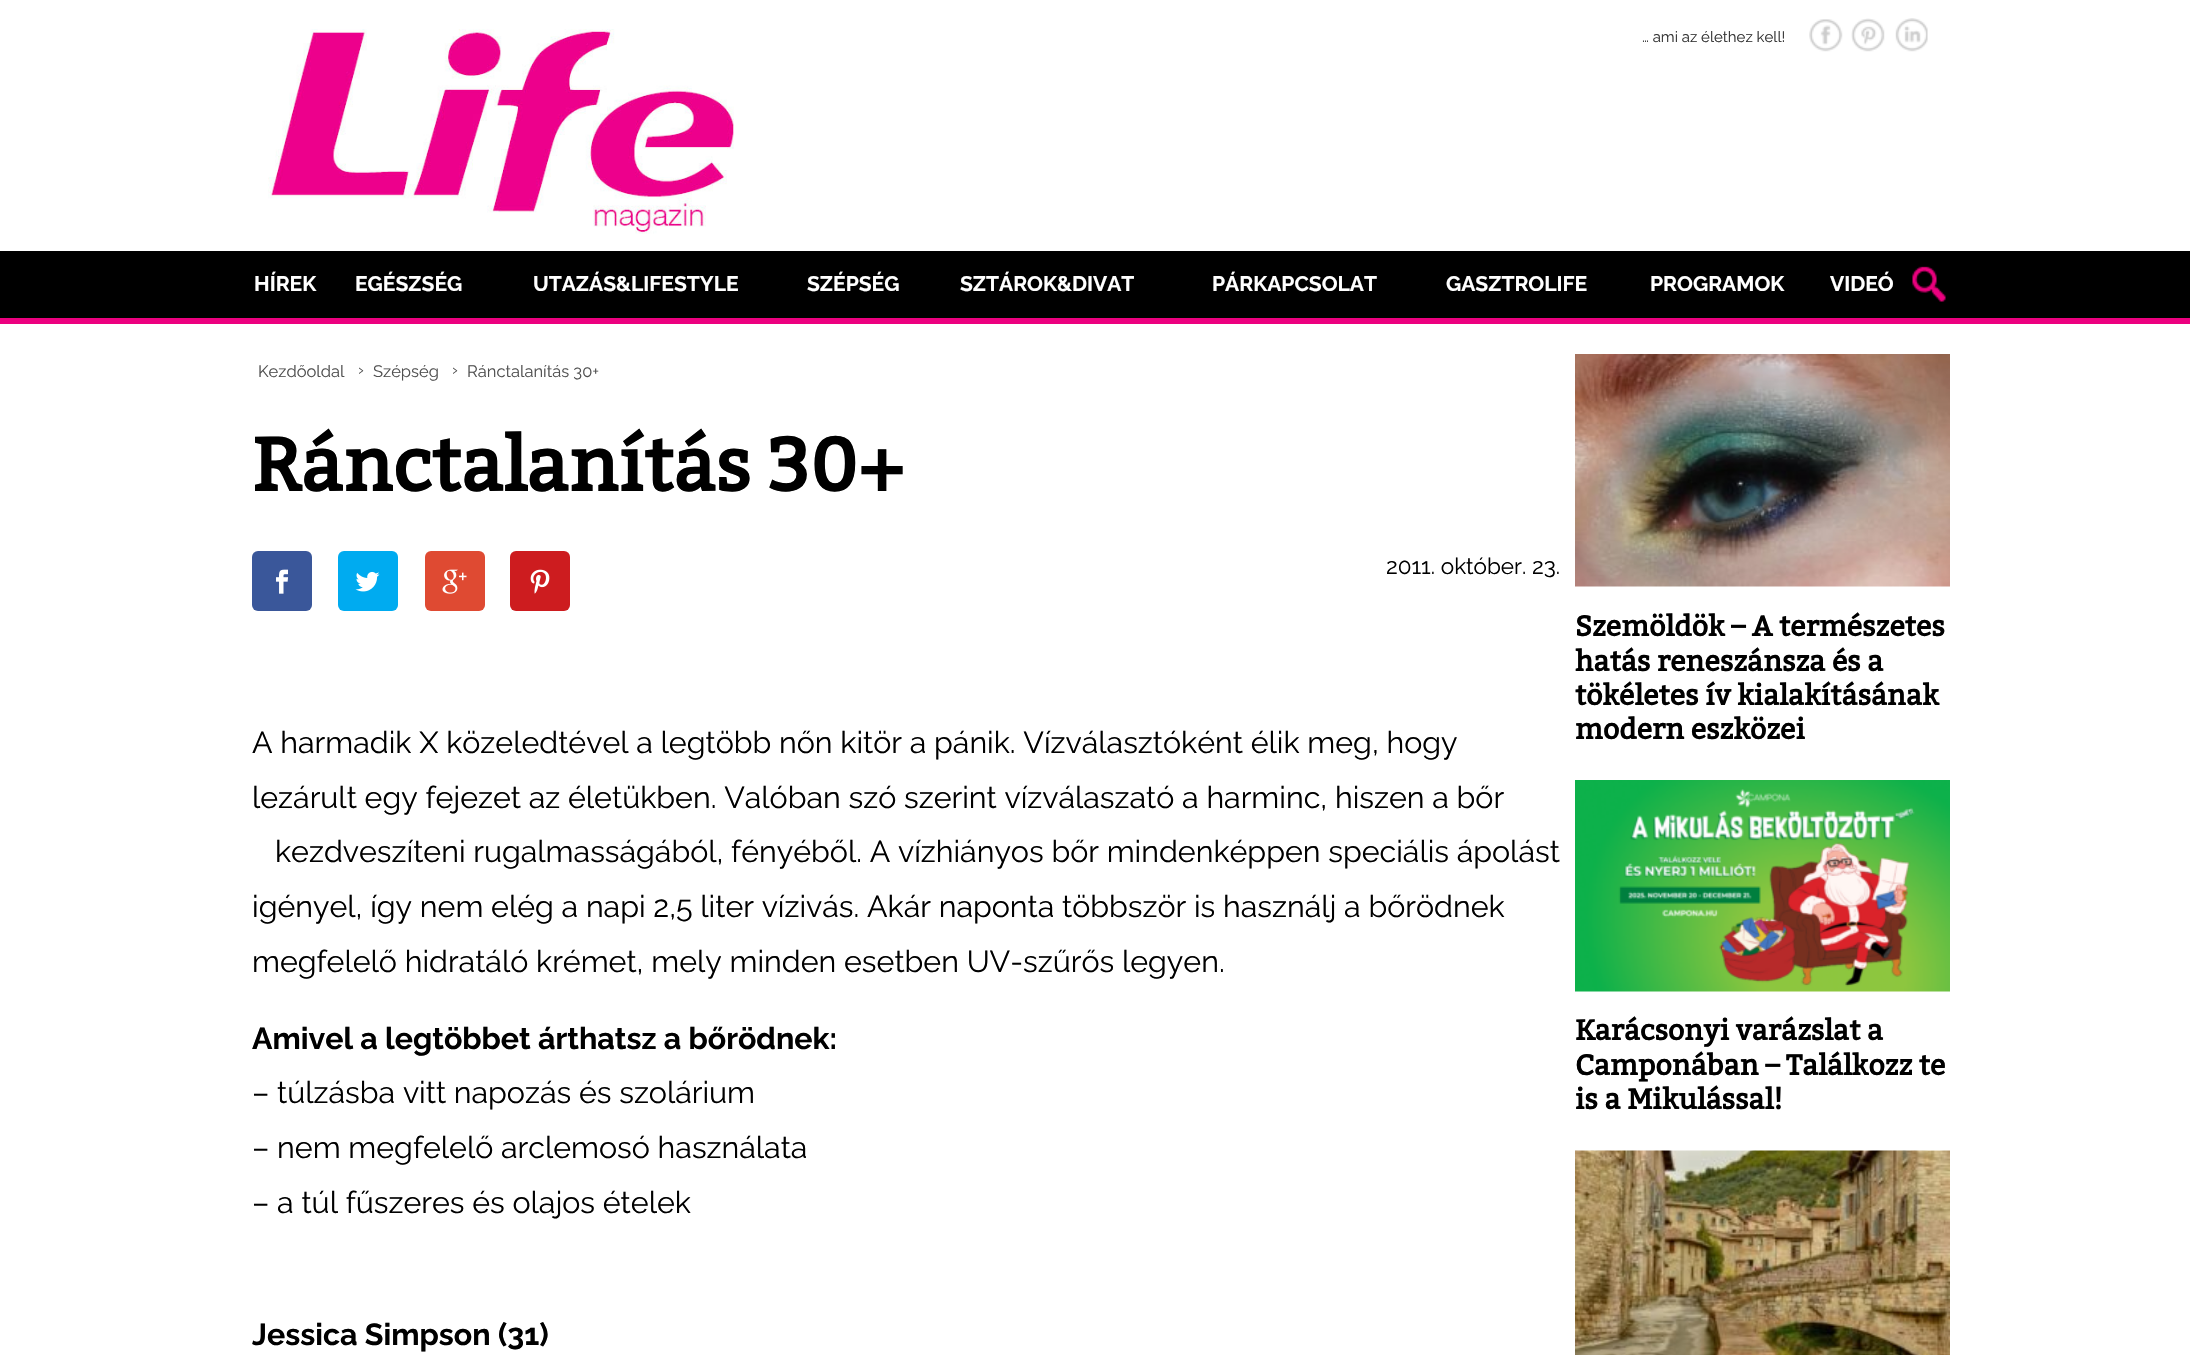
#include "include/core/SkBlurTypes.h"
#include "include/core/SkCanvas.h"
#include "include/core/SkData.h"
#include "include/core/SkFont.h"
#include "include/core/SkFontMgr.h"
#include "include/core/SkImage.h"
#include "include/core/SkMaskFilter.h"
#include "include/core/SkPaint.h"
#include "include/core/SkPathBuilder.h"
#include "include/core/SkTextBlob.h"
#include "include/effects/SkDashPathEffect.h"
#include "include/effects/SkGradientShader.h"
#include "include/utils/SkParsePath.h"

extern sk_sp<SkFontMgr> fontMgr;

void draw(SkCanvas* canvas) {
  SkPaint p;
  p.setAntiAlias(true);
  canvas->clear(SK_ColorWHITE);
  canvas->drawImageRect(SkImages::DeferredFromEncodedData(SkData::MakeFromFileName("images/1.png")), SkRect::MakeLTRB(268, 29, 734, 234), SkSamplingOptions());
  canvas->drawImageRect(SkImages::DeferredFromEncodedData(SkData::MakeFromFileName("images/2.png")), SkRect::MakeLTRB(1809, 19, 1843, 52), SkSamplingOptions());
  canvas->drawImageRect(SkImages::DeferredFromEncodedData(SkData::MakeFromFileName("images/3.png")), SkRect::MakeLTRB(1851, 18, 1885, 52), SkSamplingOptions());
  canvas->drawImageRect(SkImages::DeferredFromEncodedData(SkData::MakeFromFileName("images/4.png")), SkRect::MakeLTRB(1895, 18, 1928, 52), SkSamplingOptions());
  p.setColor(SK_ColorBLACK);
  canvas->drawRect(SkRect::MakeLTRB(0, 251, 2190, 318), p);
  p.setColor(SkColorSetRGB(236, 0, 127));
  canvas->drawRect(SkRect::MakeLTRB(0, 318, 2190, 324), p);
  canvas->drawImageRect(SkImages::DeferredFromEncodedData(SkData::MakeFromFileName("images/5.png")), SkRect::MakeLTRB(1912, 266, 1946, 302), SkSamplingOptions());
  p.setColor(SkColorSetRGB(58, 87, 154));
  canvas->drawRoundRect(SkRect::MakeLTRB(252, 551, 312, 611), 6, 6, p);
  canvas->drawImageRect(SkImages::DeferredFromEncodedData(SkData::MakeFromFileName("images/6.png")), SkRect::MakeLTRB(276, 569, 289, 594), SkSamplingOptions());
  p.setColor(SkColorSetRGB(0, 171, 240));
  canvas->drawRoundRect(SkRect::MakeLTRB(338, 551, 398, 611), 6, 6, p);
  canvas->drawImageRect(SkImages::DeferredFromEncodedData(SkData::MakeFromFileName("images/7.png")), SkRect::MakeLTRB(355, 571, 380, 592), SkSamplingOptions());
  p.setColor(SkColorSetRGB(223, 74, 50));
  canvas->drawRoundRect(SkRect::MakeLTRB(425, 551, 485, 611), 6, 6, p);
  canvas->drawImageRect(SkImages::DeferredFromEncodedData(SkData::MakeFromFileName("images/8.png")), SkRect::MakeLTRB(442, 569, 467, 594), SkSamplingOptions());
  p.setColor(SkColorSetRGB(205, 28, 31));
  canvas->drawRoundRect(SkRect::MakeLTRB(510, 551, 570, 611), 6, 6, p);
  canvas->drawImageRect(SkImages::DeferredFromEncodedData(SkData::MakeFromFileName("images/9.png")), SkRect::MakeLTRB(530, 569, 550, 594), SkSamplingOptions());
  canvas->drawImageRect(SkImages::DeferredFromEncodedData(SkData::MakeFromFileName("images/10.png")), SkRect::MakeLTRB(1575, 354, 1950, 587), SkSamplingOptions());
  canvas->drawImageRect(SkImages::DeferredFromEncodedData(SkData::MakeFromFileName("images/11.png")), SkRect::MakeLTRB(1575, 780, 1950, 992), SkSamplingOptions());
  canvas->drawImageRect(SkImages::DeferredFromEncodedData(SkData::MakeFromFileName("images/12.png")), SkRect::MakeLTRB(1575, 1150, 1950, 1355), SkSamplingOptions());
  SkFont font1(fontMgr->matchFamilyStyle("Raleway", SkFontStyle::Normal()), 15);
  font1.setSubpixel(true);
  p.setColor(SkColorSetRGB(51, 51, 51));
  canvas->drawString("… ami az élethez kell!", 1642, 42, font1, p);
  SkFont font2(fontMgr->matchFamilyStyle("Raleway", SkFontStyle::Bold()), 21);
  font2.setSubpixel(true);
  p.setColor(SK_ColorWHITE);
  canvas->drawString("HÍREK", 254, 291, font2, p);
  canvas->drawString("EGÉSZSÉG", 355, 291, font2, p);
  canvas->drawString("UTAZÁS&LIFESTYLE", 533, 291, font2, p);
  canvas->drawString("SZÉPSÉG", 807, 291, font2, p);
  canvas->drawString("SZTÁROK&DIVAT", 960, 291, font2, p);
  canvas->drawString("PÁRKAPCSOLAT", 1212, 291, font2, p);
  canvas->drawString("GASZTROLIFE", 1446, 291, font2, p);
  canvas->drawString("PROGRAMOK", 1650, 291, font2, p);
  canvas->drawString("VIDEÓ", 1830, 291, font2, p);
  SkFont font3(fontMgr->matchFamilyStyle("Raleway", SkFontStyle::Normal()), 16.5f);
  font3.setSubpixel(true);
  p.setColor(SkColorSetRGB(80, 80, 80));
  canvas->drawString("Kezdőoldal", 258, 377, font3, p);
  canvas->drawString("›", 358, 375, font3, p);
  canvas->drawString("Szépség", 373, 377, font3, p);
  canvas->drawString("›", 452, 375, font3, p);
  canvas->drawString("Ránctalanítás 30+", 467, 377, font3, p);
  SkFont font4(fontMgr->matchFamilyStyle("Bitter", SkFontStyle::Bold()), 75);
  font4.setSubpixel(true);
  p.setColor(SK_ColorBLACK);
  canvas->drawString("Ránctalanítás 30+", 252, 491, font4, p);
  SkFont font5(fontMgr->matchFamilyStyle("Raleway", SkFontStyle::Normal()), 22.5f);
  font5.setSubpixel(true);
  canvas->drawString("2011. október. 23.", 1386, 574, font5, p);
  SkFont font6(fontMgr->matchFamilyStyle("Raleway", SkFontStyle::Normal()), 30.4f);
  font6.setSubpixel(true);
  canvas->drawString("A harmadik X közeledtével a legtöbb nőn kitör a pánik. Vízválasztóként élik meg, hogy", 252, 753, font6, p);
  canvas->drawString("lezárult egy fejezet az életükben. Valóban szó szerint vízválaszató a harminc, hiszen a bőr", 252, 808, font6, p);
  canvas->drawString("kezdveszíteni rugalmasságából, fényéből. A vízhiányos bőr mindenképpen speciális ápolást", 275, 862, font6, p);
  canvas->drawString("igényel, így nem elég a napi 2,5 liter vízivás. Akár naponta többször is használj a bőrödnek", 252, 917, font6, p);
  canvas->drawString("megfelelő hidratáló krémet, mely minden esetben UV-szűrős legyen.", 252, 972, font6, p);
  SkFont font7(fontMgr->matchFamilyStyle("Raleway", SkFontStyle::Bold()), 30.4f);
  font7.setSubpixel(true);
  canvas->drawString("Amivel a legtöbbet árthatsz a bőrödnek:", 252, 1049, font7, p);
  canvas->drawString("– túlzásba vitt napozás és szolárium", 252, 1103, font6, p);
  canvas->drawString("– nem megfelelő arclemosó használata", 252, 1158, font6, p);
  canvas->drawString("– a túl fűszeres és olajos ételek", 252, 1213, font6, p);
  canvas->drawString("Jessica Simpson (31)", 252, 1345, font7, p);
  SkFont font8(fontMgr->matchFamilyStyle("Bitter", SkFontStyle::Bold()), 28.5f);
  font8.setSubpixel(true);
  canvas->drawString("Szemöldök – A természetes", 1575, 636, font8, p);
  canvas->drawString("hatás reneszánsza és a", 1575, 671, font8, p);
  canvas->drawString("tökéletes ív kialakításának", 1575, 705, font8, p);
  canvas->drawString("modern eszközei", 1575, 739, font8, p);
  canvas->drawString("Karácsonyi varázslat a", 1575, 1040, font8, p);
  canvas->drawString("Camponában – Találkozz te", 1575, 1075, font8, p);
  canvas->drawString("is a Mikulással!", 1575, 1109, font8, p);
}
